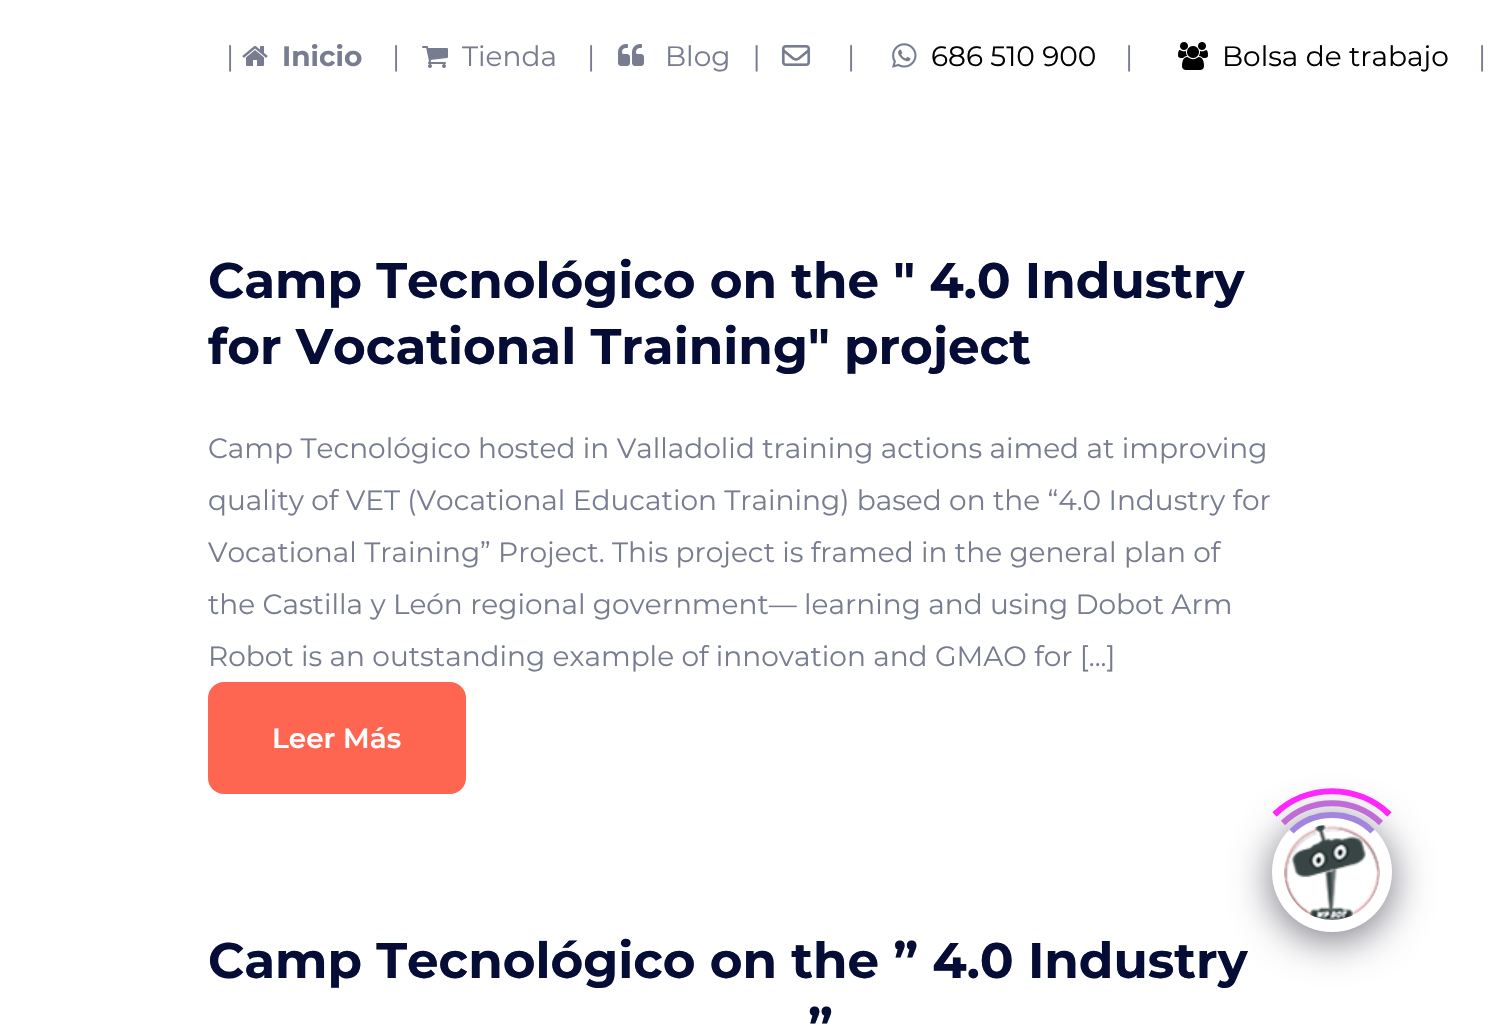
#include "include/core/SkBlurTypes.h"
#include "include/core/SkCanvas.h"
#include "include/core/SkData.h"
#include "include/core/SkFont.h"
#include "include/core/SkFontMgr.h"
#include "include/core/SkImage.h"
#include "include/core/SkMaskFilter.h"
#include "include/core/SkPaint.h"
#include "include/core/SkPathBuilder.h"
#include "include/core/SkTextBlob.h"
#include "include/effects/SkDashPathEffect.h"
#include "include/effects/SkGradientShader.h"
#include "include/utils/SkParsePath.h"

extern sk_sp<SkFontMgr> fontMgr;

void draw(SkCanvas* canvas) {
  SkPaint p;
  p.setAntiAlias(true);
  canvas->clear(SK_ColorWHITE);
  canvas->drawImageRect(SkImages::DeferredFromEncodedData(SkData::MakeFromFileName("images/1.png")), SkRect::MakeLTRB(242, 46, 268, 66), SkSamplingOptions());
  canvas->drawImageRect(SkImages::DeferredFromEncodedData(SkData::MakeFromFileName("images/2.png")), SkRect::MakeLTRB(422, 46, 448, 68), SkSamplingOptions());
  canvas->drawImageRect(SkImages::DeferredFromEncodedData(SkData::MakeFromFileName("images/3.png")), SkRect::MakeLTRB(618, 44, 644, 66), SkSamplingOptions());
  canvas->drawImageRect(SkImages::DeferredFromEncodedData(SkData::MakeFromFileName("images/4.png")), SkRect::MakeLTRB(782, 45, 810, 66), SkSamplingOptions());
  canvas->drawImageRect(SkImages::DeferredFromEncodedData(SkData::MakeFromFileName("images/5.png")), SkRect::MakeLTRB(892, 43, 917, 68), SkSamplingOptions());
  canvas->drawImageRect(SkImages::DeferredFromEncodedData(SkData::MakeFromFileName("images/6.png")), SkRect::MakeLTRB(1178, 42, 1208, 70), SkSamplingOptions());
  p.setColor(SkColorSetRGB(255, 102, 82));
  canvas->drawRoundRect(SkRect::MakeLTRB(208, 682, 466, 794), 16, 16, p);
  p.setColor(SkColorSetRGB(118, 117, 128));
  p.setMaskFilter(SkMaskFilter::MakeBlur(kNormal_SkBlurStyle, 20));
  canvas->drawRoundRect(SkRect::MakeLTRB(1272, 820, 1392, 940), 60, 60, p);
  p.setMaskFilter(nullptr);
  p.setColor(SK_ColorWHITE);
  canvas->drawCircle(1332, 872, 60, p);
  canvas->drawImageRect(SkImages::DeferredFromEncodedData(SkData::MakeFromFileName("images/7.png")), SkRect::MakeLTRB(1284, 824, 1380, 920), SkSamplingOptions());
  p.setStyle(SkPaint::kStroke_Style);
  p.setStrokeWidth(6);
  p.setColor(SkColorSetARGB(217, 147, 112, 219));
  canvas->drawPath(SkPathBuilder().moveTo(1291.5f, 831.5f).cubicTo(1313.5f, 809.5f, 1350.5f, 809.5f, 1372.5f, 831.5f).detach(), p);
  p.setColor(SkColorSetARGB(217, 186, 85, 211));
  canvas->drawPath(SkPathBuilder().moveTo(1283, 823).cubicTo(1310, 796.5f, 1354, 796.5f, 1381, 823).detach(), p);
  p.setColor(SkColorSetARGB(217, 255, 0, 255));
  canvas->drawPath(SkPathBuilder().moveTo(1274.5f, 814.5f).cubicTo(1306, 783.5f, 1358, 783.5f, 1389.5f, 814.5f).detach(), p);
  SkFont font1(fontMgr->matchFamilyStyle("Montserrat", SkFontStyle::Normal()), 28);
  font1.setSubpixel(true);
  p.setStyle(SkPaint::kFill_Style);
  p.setColor(SkColorSetRGB(119, 124, 144));
  canvas->drawString("|", 226, 66, font1, p);
  SkFont font2(fontMgr->matchFamilyStyle("Montserrat", SkFontStyle::Bold()), 28);
  font2.setSubpixel(true);
  canvas->drawString("Inicio", 282, 66, font2, p);
  canvas->drawString("|", 392, 66, font1, p);
  canvas->drawString("Tienda", 462, 66, font1, p);
  canvas->drawString("|", 587, 66, font1, p);
  canvas->drawString("Blog   |", 665, 66, font1, p);
  canvas->drawString("|", 847, 66, font1, p);
  p.setColor(SK_ColorBLACK);
  canvas->drawString("686 510 900", 931, 66, font1, p);
  p.setColor(SkColorSetRGB(119, 124, 144));
  canvas->drawString("|", 1125, 66, font1, p);
  p.setColor(SK_ColorBLACK);
  canvas->drawString("Bolsa de trabajo", 1222, 66, font1, p);
  p.setColor(SkColorSetRGB(119, 124, 144));
  canvas->drawString("|", 1478, 66, font1, p);
  SkFont font3(fontMgr->matchFamilyStyle("Montserrat", SkFontStyle::Bold()), 50);
  font3.setSubpixel(true);
  p.setColor(SkColorSetRGB(5, 13, 54));
  canvas->drawString("Camp Tecnológico on the \" 4.0 Industry", 208, 298, font3, p);
  canvas->drawString("for Vocational Training\" project", 208, 364, font3, p);
  p.setColor(SkColorSetRGB(119, 124, 144));
  canvas->drawString("Camp Tecnológico hosted in Valladolid training actions aimed at improving", 208, 458, font1, p);
  canvas->drawString("quality of VET (Vocational Education Training) based on the “4.0 Industry for", 208, 510, font1, p);
  canvas->drawString("Vocational Training” Project. This project is framed in the general plan of", 208, 562, font1, p);
  canvas->drawString("the Castilla y León regional government— learning and using Dobot Arm", 208, 614, font1, p);
  canvas->drawString("Robot is an outstanding example of innovation and GMAO for [...]", 208, 666, font1, p);
  SkFont font4(fontMgr->matchFamilyStyle("Montserrat", SkFontStyle(600, SkFontStyle::kNormal_Width, SkFontStyle::kUpright_Slant)), 28);
  font4.setSubpixel(true);
  p.setColor(SK_ColorWHITE);
  canvas->drawString("Leer Más", 272, 748, font4, p);
  p.setColor(SkColorSetRGB(5, 13, 54));
  canvas->drawString("Camp Tecnológico on the ” 4.0 Industry", 208, 978, font3, p);
  canvas->drawString("”", 808, 1044, font3, p);
}
